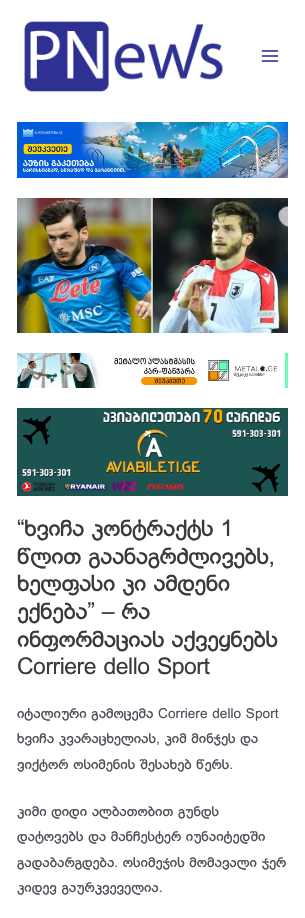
#include "include/core/SkBlurTypes.h"
#include "include/core/SkCanvas.h"
#include "include/core/SkData.h"
#include "include/core/SkFont.h"
#include "include/core/SkFontMgr.h"
#include "include/core/SkImage.h"
#include "include/core/SkMaskFilter.h"
#include "include/core/SkPaint.h"
#include "include/core/SkPathBuilder.h"
#include "include/core/SkTextBlob.h"
#include "include/effects/SkDashPathEffect.h"
#include "include/effects/SkGradientShader.h"
#include "include/utils/SkParsePath.h"

extern sk_sp<SkFontMgr> fontMgr;

void draw(SkCanvas* canvas) {
  SkPaint p;
  p.setAntiAlias(true);
  auto spacedText = [&](const char* s, float x, float y, const SkFont& font, const SkPaint& ink, float letter, float word) {
    std::vector<SkGlyphID> glyphs(font.countText(s, strlen(s), SkTextEncoding::kUTF8));
    std::vector<float> xs(glyphs.size());
    font.textToGlyphs(s, strlen(s), SkTextEncoding::kUTF8, glyphs);
    font.getXPos(glyphs, xs, x);
    float extra = 0;
    for (size_t i = 0; i < glyphs.size(); i++) {
      xs[i] += extra;
      extra += letter + word * (glyphs[i] == font.unicharToGlyph(' '));
    }
    canvas->drawTextBlob(SkTextBlob::MakeFromPosHGlyphs(glyphs, xs, y, font), 0, 0, ink);
  };
  canvas->clear(SK_ColorWHITE);
  canvas->drawImageRect(SkImages::DeferredFromEncodedData(SkData::MakeFromFileName("images/1.png")), SkRect::MakeLTRB(24, 21, 223, 92), SkSamplingOptions());
  canvas->drawImageRect(SkImages::DeferredFromEncodedData(SkData::MakeFromFileName("images/2.png")), SkRect::MakeLTRB(261, 50, 279, 62), SkSamplingOptions());
  canvas->drawImageRect(SkImages::DeferredFromEncodedData(SkData::MakeFromFileName("images/3.png")), SkRect::MakeLTRB(17, 122, 288, 178), SkSamplingOptions());
  canvas->drawImageRect(SkImages::DeferredFromEncodedData(SkData::MakeFromFileName("images/4.png")), SkRect::MakeLTRB(17, 198, 288, 333), SkSamplingOptions());
  canvas->drawImageRect(SkImages::DeferredFromEncodedData(SkData::MakeFromFileName("images/5.png")), SkRect::MakeLTRB(17, 353, 288, 388), SkSamplingOptions());
  canvas->drawImageRect(SkImages::DeferredFromEncodedData(SkData::MakeFromFileName("images/6.png")), SkRect::MakeLTRB(17, 408, 288, 496), SkSamplingOptions());
  SkFont font1(fontMgr->matchFamilyStyle("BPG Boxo", SkFontStyle::Normal()), 23);
  font1.setSubpixel(true);
  p.setColor(SkColorSetRGB(58, 58, 58));
  spacedText("“ხვიჩა კონტრაქტს 1", 17, 536, font1, p, -0.5f, 0);
  spacedText("წლით გაანაგრძლივებს,", 17, 564, font1, p, -0.5f, 0);
  spacedText("ხელფასი კი ამდენი", 17, 591, font1, p, -0.5f, 0);
  spacedText("ექნება” – რა", 17, 619, font1, p, -0.5f, 0);
  spacedText("ინფორმაციას აქვეყნებს", 17, 647, font1, p, -0.5f, 0);
  spacedText("Corriere dello Sport", 17, 674, font1, p, -0.5f, 0);
  SkFont font2(fontMgr->matchFamilyStyle("BPG Boxo", SkFontStyle::Normal()), 13.7f);
  font2.setSubpixel(true);
  p.setColor(SkColorSetRGB(75, 79, 88));
  canvas->drawString("იტალიური გამოცემა Corriere dello Sport", 17, 718, font2, p);
  canvas->drawString("ხვიჩა კვარაცხელიას, კიმ მინჯეს და", 17, 743, font2, p);
  canvas->drawString("ვიქტორ ოსიმენის შესახებ წერს.", 17, 769, font2, p);
  canvas->drawString("კიმი დიდი ალბათობით გუნდს", 17, 816, font2, p);
  canvas->drawString("დატოვებს და მანჩესტერ იუნაიტედში", 17, 841, font2, p);
  canvas->drawString("გადაბარგდება. ოსიმეჯის მომავალი ჯერ", 17, 867, font2, p);
  canvas->drawString("კიდევ გაურკვეველია.", 17, 892, font2, p);
}
